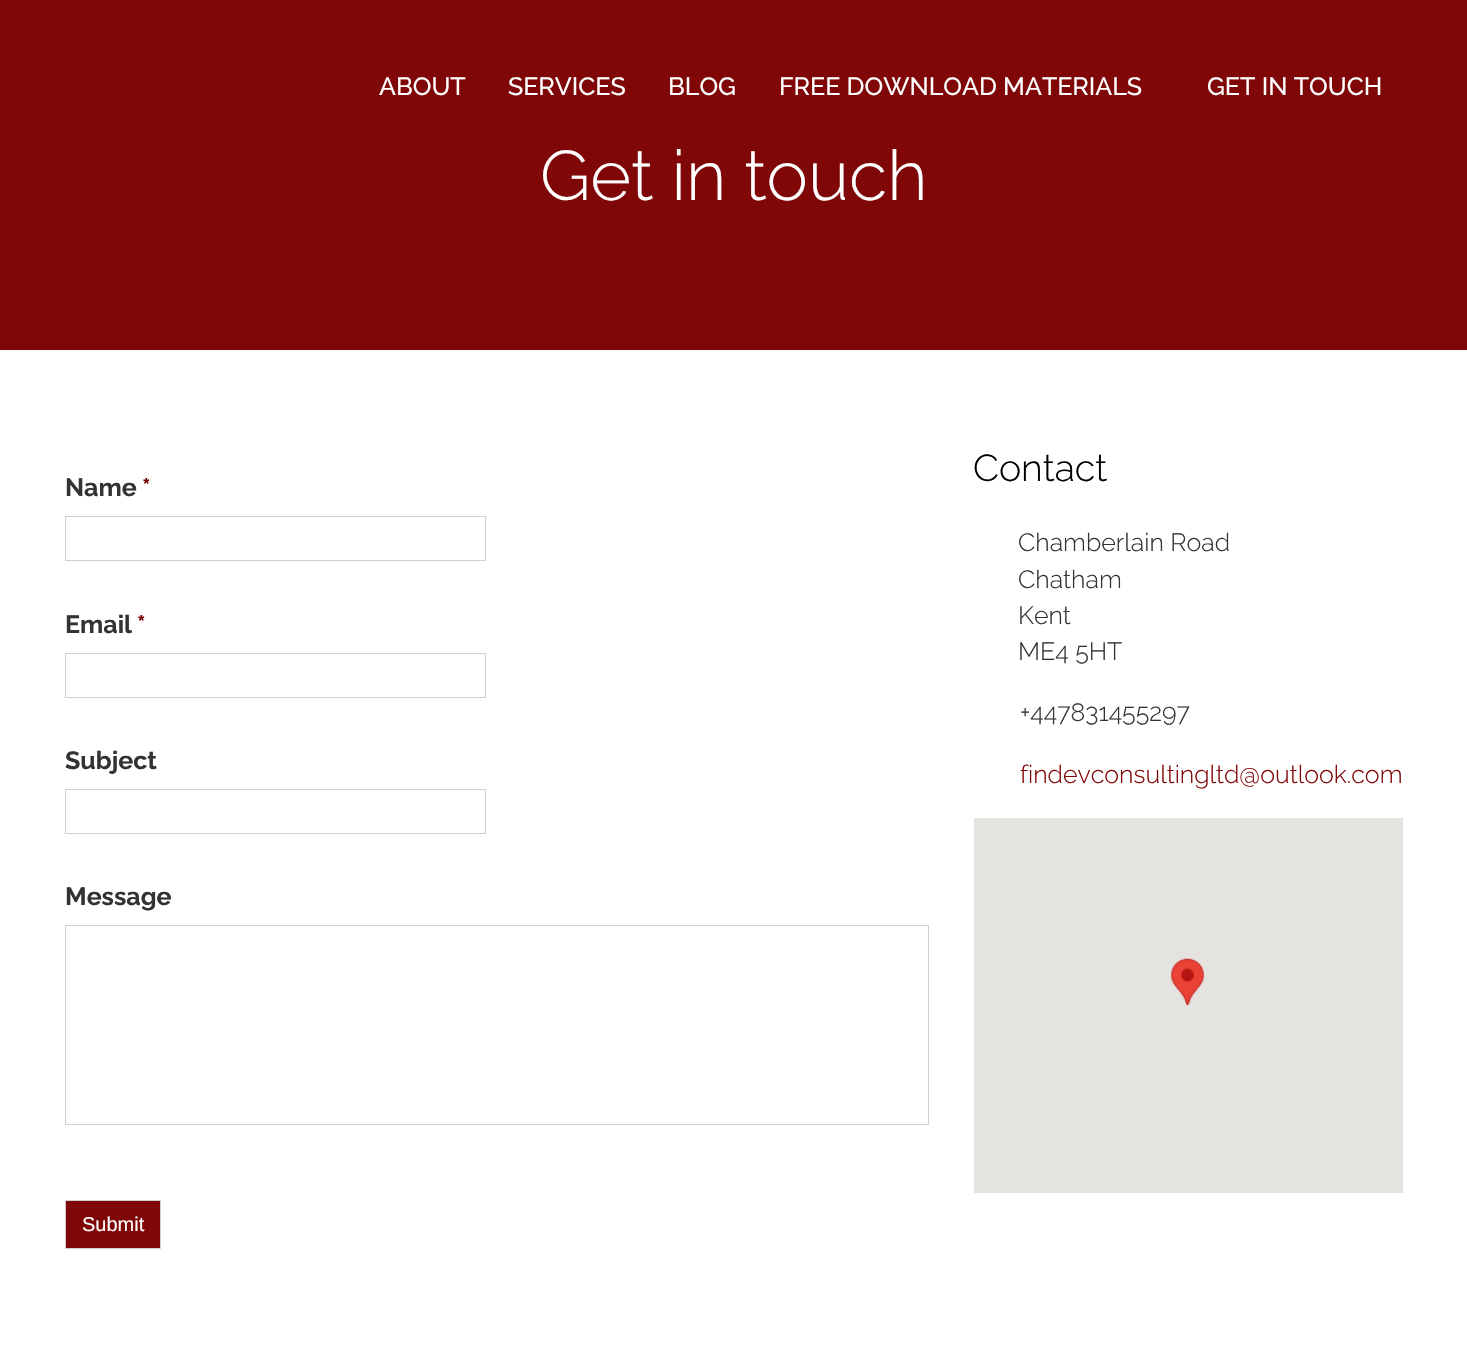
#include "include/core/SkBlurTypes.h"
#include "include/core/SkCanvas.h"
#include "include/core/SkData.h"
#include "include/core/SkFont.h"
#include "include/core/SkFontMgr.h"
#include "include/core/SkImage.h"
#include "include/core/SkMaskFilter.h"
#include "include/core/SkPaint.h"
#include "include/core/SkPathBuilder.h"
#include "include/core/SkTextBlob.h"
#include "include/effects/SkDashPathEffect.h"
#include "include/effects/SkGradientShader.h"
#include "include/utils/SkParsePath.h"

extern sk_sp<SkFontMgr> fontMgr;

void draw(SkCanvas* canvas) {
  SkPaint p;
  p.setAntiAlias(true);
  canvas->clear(SK_ColorWHITE);
  p.setColor(SkColorSetRGB(127, 7, 7));
  canvas->drawRect(SkRect::MakeLTRB(0, 0, 1467, 350), p);
  p.setStyle(SkPaint::kStroke_Style);
  p.setStrokeWidth(1);
  p.setColor(SkColorSetRGB(208, 208, 208));
  canvas->drawRect(SkRect::MakeLTRB(65.5f, 516.5f, 485.5f, 560.5f), p);
  canvas->drawRect(SkRect::MakeLTRB(65.5f, 653.5f, 485.5f, 697.5f), p);
  canvas->drawRect(SkRect::MakeLTRB(65.5f, 789.5f, 485.5f, 833.5f), p);
  canvas->drawRect(SkRect::MakeLTRB(65.5f, 925.5f, 928.5f, 1124.5f), p);
  p.setStyle(SkPaint::kFill_Style);
  p.setColor(SkColorSetRGB(127, 7, 7));
  canvas->drawRect(SkRect::MakeLTRB(65.5f, 1200.5f, 160.5f, 1248.5f), p);
  p.setStyle(SkPaint::kStroke_Style);
  p.setColor(SkColorSetRGB(208, 208, 208));
  canvas->drawRect(SkRect::MakeLTRB(65.5f, 1200.5f, 160.5f, 1248.5f), p);
  p.setStyle(SkPaint::kFill_Style);
  p.setColor(SkColorSetRGB(229, 227, 223));
  canvas->drawRect(SkRect::MakeLTRB(974, 818, 1403, 1193), p);
  canvas->drawImageRect(SkImages::DeferredFromEncodedData(SkData::MakeFromFileName("images/1.png")), SkRect::MakeLTRB(1171, 958, 1204, 1005), SkSamplingOptions());
  SkFont font1(fontMgr->matchFamilyStyle("Raleway", SkFontStyle(500, SkFontStyle::kNormal_Width, SkFontStyle::kUpright_Slant)), 25);
  font1.setSubpixel(true);
  p.setColor(SK_ColorWHITE);
  canvas->drawString("ABOUT", 379, 95, font1, p);
  canvas->drawString("SERVICES", 508, 95, font1, p);
  canvas->drawString("BLOG", 668, 95, font1, p);
  canvas->drawString("FREE DOWNLOAD MATERIALS", 779, 95, font1, p);
  canvas->drawString("GET IN TOUCH", 1207, 95, font1, p);
  SkFont font2(fontMgr->matchFamilyStyle("Raleway", SkFontStyle(300, SkFontStyle::kNormal_Width, SkFontStyle::kUpright_Slant)), 70);
  font2.setSubpixel(true);
  canvas->drawString("Get in touch", 540, 200, font2, p);
  SkFont font3(fontMgr->matchFamilyStyle("Raleway", SkFontStyle::Bold()), 25);
  font3.setSubpixel(true);
  p.setColor(SkColorSetRGB(51, 51, 51));
  canvas->drawString("Name", 65, 496, font3, p);
  p.setColor(SkColorSetRGB(121, 0, 0));
  canvas->drawString("*", 142, 496, font3, p);
  p.setColor(SkColorSetRGB(51, 51, 51));
  canvas->drawString("Email", 65, 633, font3, p);
  p.setColor(SkColorSetRGB(121, 0, 0));
  canvas->drawString("*", 137, 633, font3, p);
  p.setColor(SkColorSetRGB(51, 51, 51));
  canvas->drawString("Subject", 65, 769, font3, p);
  canvas->drawString("Message", 65, 905, font3, p);
  SkFont font4(fontMgr->matchFamilyStyle("Liberation Sans", SkFontStyle::Normal()), 20);
  font4.setSubpixel(true);
  p.setColor(SK_ColorWHITE);
  canvas->drawString("Submit", 82, 1231, font4, p);
  SkFont font5(fontMgr->matchFamilyStyle("Raleway", SkFontStyle(300, SkFontStyle::kNormal_Width, SkFontStyle::kUpright_Slant)), 37.5f);
  font5.setSubpixel(true);
  p.setColor(SK_ColorBLACK);
  canvas->drawString("Contact", 973, 481, font5, p);
  SkFont font6(fontMgr->matchFamilyStyle("Raleway", SkFontStyle(300, SkFontStyle::kNormal_Width, SkFontStyle::kUpright_Slant)), 25);
  font6.setSubpixel(true);
  p.setColor(SkColorSetRGB(51, 51, 51));
  canvas->drawString("Chamberlain Road", 1018, 551, font6, p);
  canvas->drawString("Chatham", 1018, 588, font6, p);
  canvas->drawString("Kent", 1018, 624, font6, p);
  canvas->drawString("ME4 5HT", 1018, 660, font6, p);
  canvas->drawString("+447831455297", 1020, 721, font6, p);
  p.setColor(SkColorSetRGB(127, 7, 7));
  canvas->drawString("findevconsultingltd@outlook.com", 1020, 783, font6, p);
}
